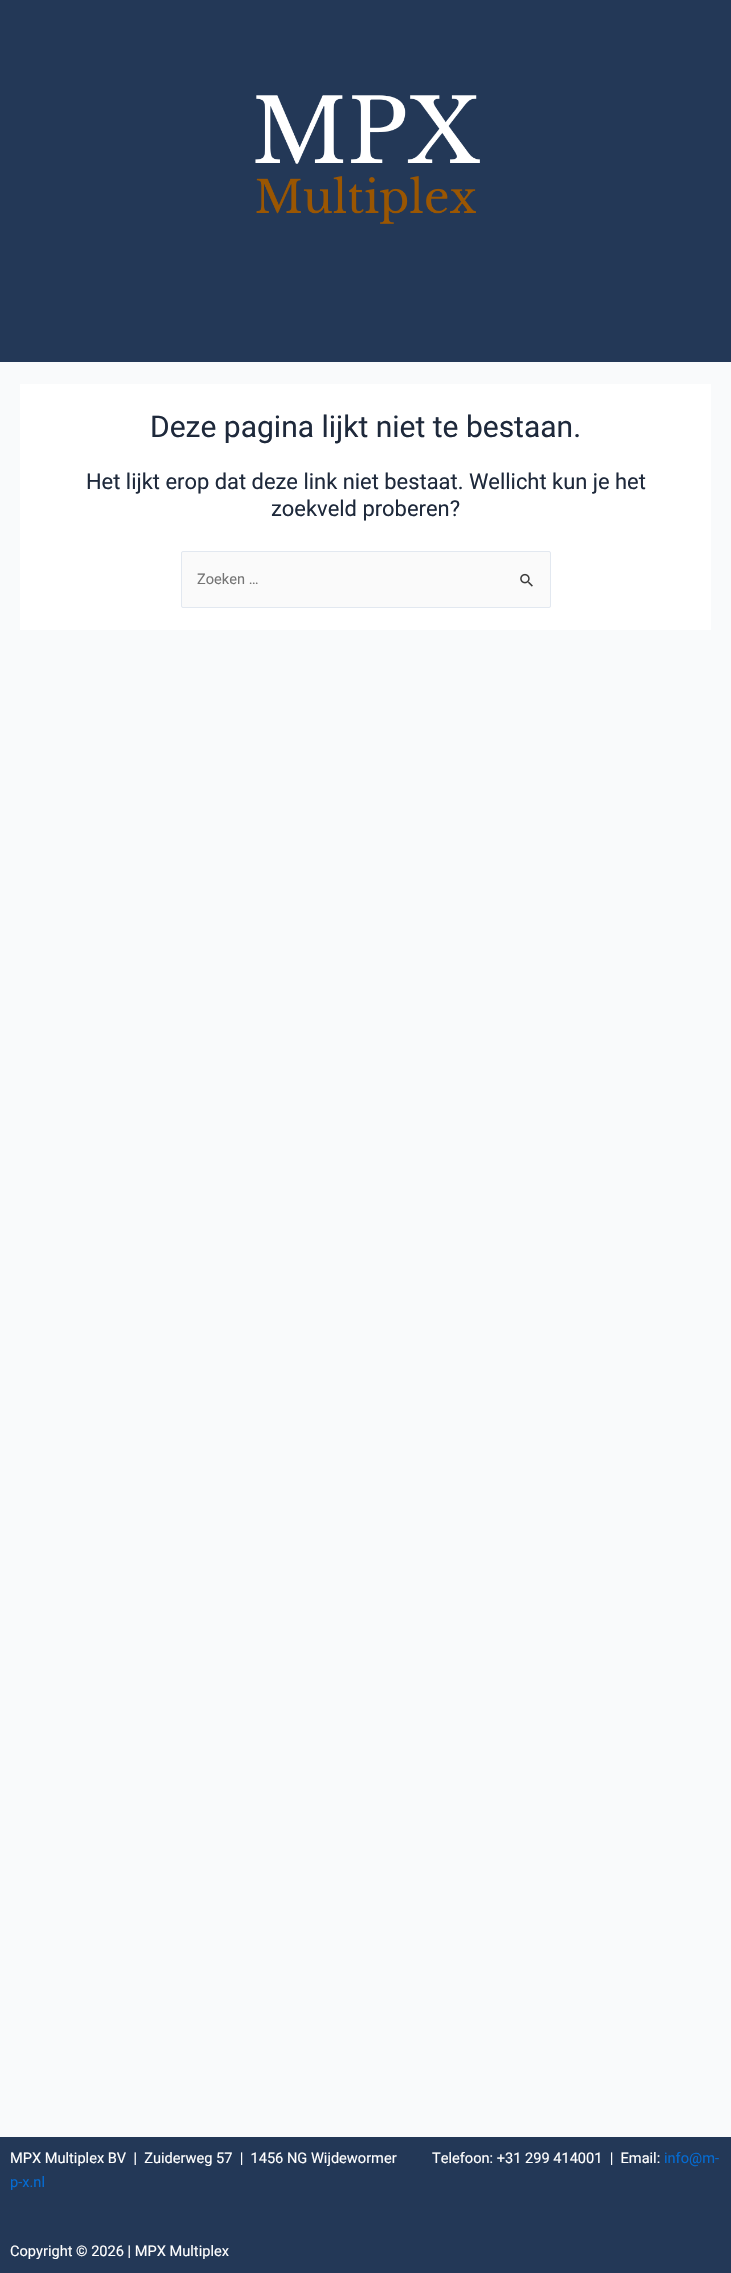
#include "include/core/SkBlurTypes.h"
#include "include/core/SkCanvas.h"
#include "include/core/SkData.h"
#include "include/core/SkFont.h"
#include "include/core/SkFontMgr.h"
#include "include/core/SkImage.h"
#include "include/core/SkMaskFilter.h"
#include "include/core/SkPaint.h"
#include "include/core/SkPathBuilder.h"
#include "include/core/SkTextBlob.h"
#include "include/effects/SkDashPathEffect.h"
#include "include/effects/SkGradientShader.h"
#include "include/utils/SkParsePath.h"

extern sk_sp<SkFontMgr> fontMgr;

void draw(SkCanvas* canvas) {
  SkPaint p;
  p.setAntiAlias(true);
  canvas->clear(SkColorSetRGB(249, 250, 251));
  p.setColor(SkColorSetRGB(35, 56, 87));
  canvas->drawRect(SkRect::MakeLTRB(0, 0, 731, 362), p);
  canvas->drawImageRect(SkImages::DeferredFromEncodedData(SkData::MakeFromFileName("images/1.png")), SkRect::MakeLTRB(255, 95, 480, 224), SkSamplingOptions());
  p.setColor(SK_ColorWHITE);
  canvas->drawRect(SkRect::MakeLTRB(20, 384, 711, 630), p);
  p.setColor(SkColorSetRGB(250, 250, 250));
  canvas->drawRoundRect(SkRect::MakeLTRB(181.5f, 551.5f, 550.5f, 607.5f), 1.5f, 1.5f, p);
  p.setStyle(SkPaint::kStroke_Style);
  p.setStrokeWidth(1);
  p.setColor(SkColorSetRGB(226, 232, 240));
  canvas->drawRoundRect(SkRect::MakeLTRB(181.5f, 551.5f, 550.5f, 607.5f), 1.5f, 1.5f, p);
  canvas->drawImageRect(SkImages::DeferredFromEncodedData(SkData::MakeFromFileName("images/2.png")), SkRect::MakeLTRB(520, 573, 533, 587), SkSamplingOptions());
  p.setStyle(SkPaint::kFill_Style);
  p.setColor(SkColorSetRGB(35, 56, 87));
  canvas->drawRect(SkRect::MakeLTRB(0, 2137, 731, 2273), p);
  SkFont font1(fontMgr->matchFamilyStyle("Roboto", SkFontStyle::Normal()), 30);
  font1.setSubpixel(true);
  p.setColor(SkColorSetRGB(30, 41, 59));
  canvas->drawString("Deze pagina lijkt niet te bestaan.", 150, 437, font1, p);
  SkFont font2(fontMgr->matchFamilyStyle("Roboto", SkFontStyle::Normal()), 21.9f);
  font2.setSubpixel(true);
  canvas->drawString("Het lijkt erop dat deze link niet bestaat. Wellicht kun je het", 86, 489, font2, p);
  canvas->drawString("zoekveld proberen?", 271, 516, font2, p);
  SkFont font3(fontMgr->matchFamilyStyle("Roboto", SkFontStyle::Normal()), 14.6f);
  font3.setSubpixel(true);
  p.setColor(SkColorSetRGB(117, 117, 117));
  canvas->drawString("Zoeken …", 197, 584, font3, p);
  p.setColor(SK_ColorWHITE);
  canvas->drawString("MPX Multiplex BV  |  Zuiderweg 57  |  1456 NG Wijdewormer", 10, 2163, font3, p);
  canvas->drawString("Telefoon: +31 299 414001  |  Email:", 432, 2163, font3, p);
  p.setColor(SkColorSetRGB(4, 107, 210));
  canvas->drawString("info@m-", 664, 2163, font3, p);
  canvas->drawString("p-x.nl", 10, 2187, font3, p);
  p.setColor(SK_ColorWHITE);
  canvas->drawString("Copyright © 2026 | MPX Multiplex", 10, 2256, font3, p);
}
